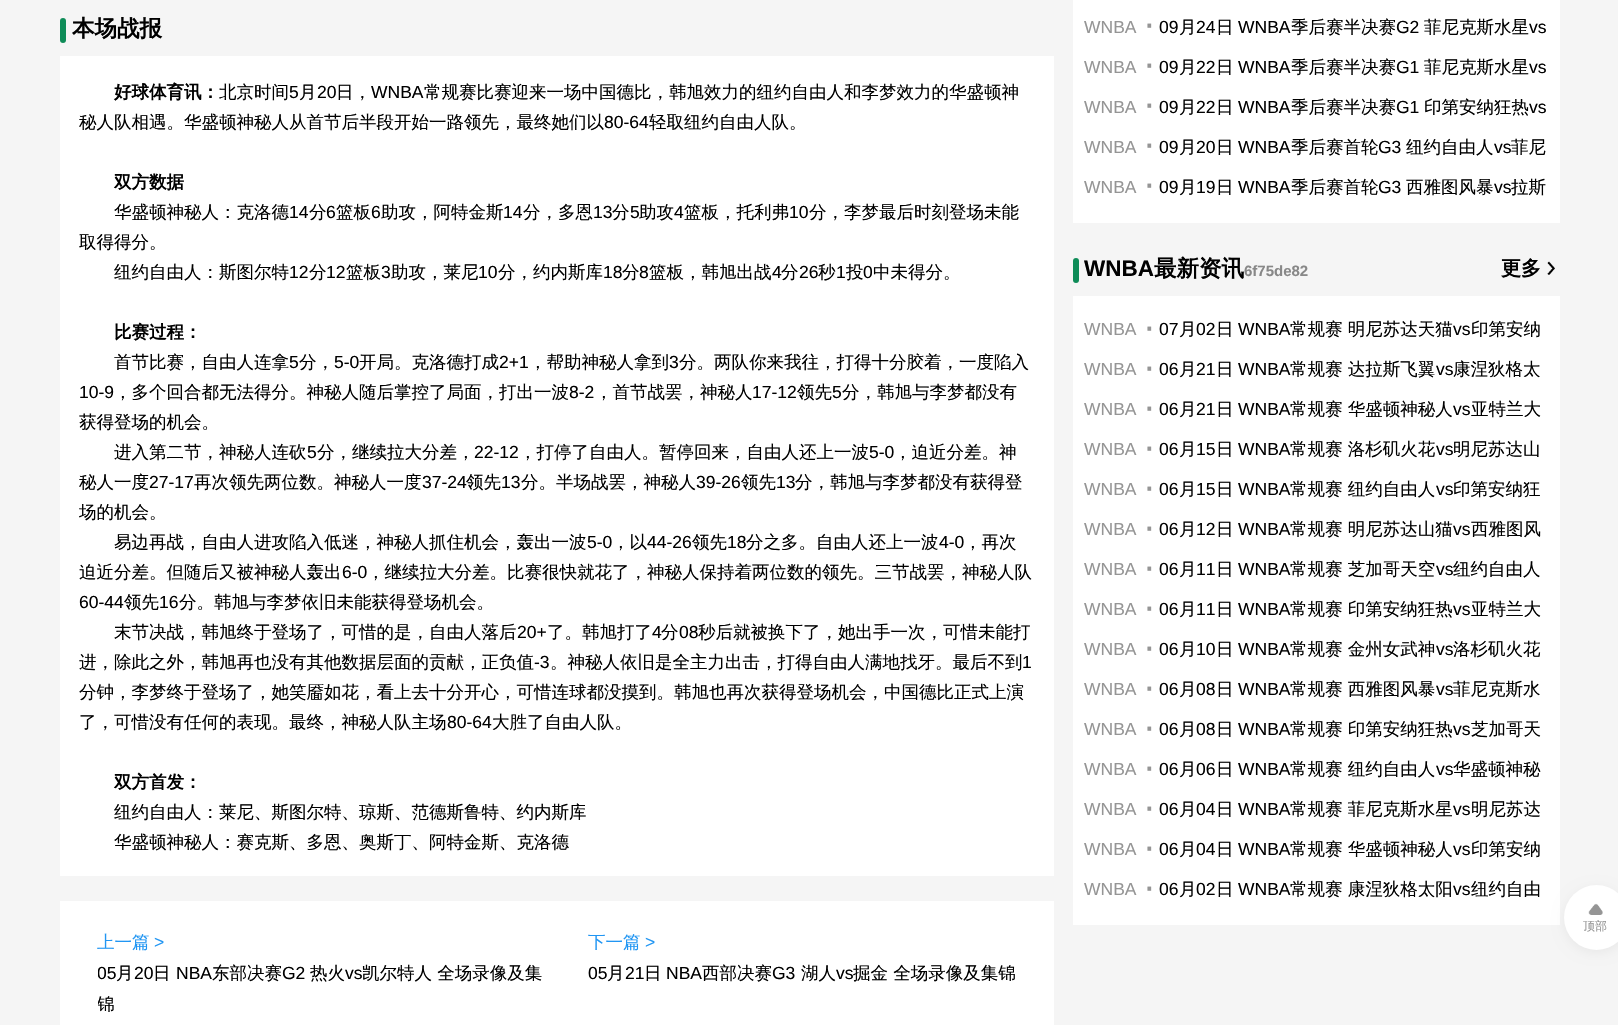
#include "include/core/SkBlurTypes.h"
#include "include/core/SkCanvas.h"
#include "include/core/SkData.h"
#include "include/core/SkFont.h"
#include "include/core/SkFontMgr.h"
#include "include/core/SkImage.h"
#include "include/core/SkMaskFilter.h"
#include "include/core/SkPaint.h"
#include "include/core/SkPathBuilder.h"
#include "include/core/SkTextBlob.h"
#include "include/effects/SkDashPathEffect.h"
#include "include/effects/SkGradientShader.h"
#include "include/utils/SkParsePath.h"

extern sk_sp<SkFontMgr> fontMgr;

void draw(SkCanvas* canvas) {
  SkPaint p;
  p.setAntiAlias(true);
  canvas->clear(SkColorSetRGB(245, 245, 245));
  p.setColor(SkColorSetRGB(14, 140, 88));
  canvas->drawRoundRect(SkRect::MakeLTRB(60, 18, 66, 43), 3, 3, p);
  p.setColor(SK_ColorWHITE);
  canvas->drawRect(SkRect::MakeLTRB(60, 56, 1054, 876), p);
  canvas->drawRect(SkRect::MakeLTRB(60, 901, 1054, 1025), p);
  canvas->drawRect(SkRect::MakeLTRB(1073, 0, 1560, 223), p);
  p.setColor(SkColorSetRGB(14, 140, 88));
  canvas->drawRoundRect(SkRect::MakeLTRB(1073, 258, 1079, 283), 3, 3, p);
  canvas->drawImageRect(SkImages::DeferredFromEncodedData(SkData::MakeFromFileName("images/1.png")), SkRect::MakeLTRB(1547, 261, 1555, 275), SkSamplingOptions());
  p.setColor(SK_ColorWHITE);
  canvas->drawRect(SkRect::MakeLTRB(1073, 296, 1560, 925), p);
  p.setColor(SkColorSetARGB(13, 0, 0, 0));
  p.setMaskFilter(SkMaskFilter::MakeBlur(kNormal_SkBlurStyle, 6));
  canvas->drawRoundRect(SkRect::MakeLTRB(1564, 888, 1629, 953), 32.5f, 32.5f, p);
  p.setMaskFilter(nullptr);
  p.setColor(SK_ColorWHITE);
  canvas->drawCircle(1596.5f, 917.5f, 32.5f, p);
  canvas->drawImageRect(SkImages::DeferredFromEncodedData(SkData::MakeFromFileName("images/2.png")), SkRect::MakeLTRB(1588, 903, 1603, 915), SkSamplingOptions());
  SkFont font1(fontMgr->matchFamilyStyle("WenQuanYi Zen Hei", SkFontStyle::Bold()), 22.5f);
  font1.setSubpixel(true);
  p.setColor(SK_ColorBLACK);
  canvas->drawString("本场战报", 72, 36, font1, p);
  SkFont font2(fontMgr->matchFamilyStyle("WenQuanYi Zen Hei", SkFontStyle::Bold()), 17.5f);
  font2.setSubpixel(true);
  canvas->drawString("好球体育讯：", 114, 98, font2, p);
  SkFont font3(fontMgr->matchFamilyStyle("WenQuanYi Zen Hei", SkFontStyle(500, SkFontStyle::kNormal_Width, SkFontStyle::kUpright_Slant)), 17.5f);
  font3.setSubpixel(true);
  canvas->drawString("北京时间", 219, 98, font3, p);
  SkFont font4(fontMgr->matchFamilyStyle("Liberation Sans", SkFontStyle::Normal()), 17.5f);
  font4.setSubpixel(true);
  canvas->drawString("5", 289, 98, font4, p);
  canvas->drawString("月", 299, 98, font3, p);
  canvas->drawString("20", 317, 98, font4, p);
  canvas->drawString("日，", 336, 98, font3, p);
  canvas->drawString("WNBA", 371, 98, font4, p);
  canvas->drawString("常规赛比赛迎来一场中国德比，韩旭效力的纽约自由人和李梦效力的华盛顿神", 424, 98, font3, p);
  canvas->drawString("秘人队相遇。华盛顿神秘人从首节后半段开始一路领先，最终她们以", 79, 128, font3, p);
  canvas->drawString("80-64", 604, 128, font4, p);
  canvas->drawString("轻取纽约自由人队。", 649, 128, font3, p);
  canvas->drawString("双方数据", 114, 188, font2, p);
  canvas->drawString("华盛顿神秘人：克洛德", 114, 218, font3, p);
  canvas->drawString("14", 289, 218, font4, p);
  canvas->drawString("分", 309, 218, font3, p);
  canvas->drawString("6", 326, 218, font4, p);
  canvas->drawString("篮板", 336, 218, font3, p);
  canvas->drawString("6", 371, 218, font4, p);
  canvas->drawString("助攻，阿特金斯", 381, 218, font3, p);
  canvas->drawString("14", 503, 218, font4, p);
  canvas->drawString("分，多恩", 523, 218, font3, p);
  canvas->drawString("13", 593, 218, font4, p);
  canvas->drawString("分", 612, 218, font3, p);
  canvas->drawString("5", 630, 218, font4, p);
  canvas->drawString("助攻", 639, 218, font3, p);
  canvas->drawString("4", 674, 218, font4, p);
  canvas->drawString("篮板，托利弗", 684, 218, font3, p);
  canvas->drawString("10", 789, 218, font4, p);
  canvas->drawString("分，李梦最后时刻登场未能", 809, 218, font3, p);
  canvas->drawString("取得得分。", 79, 248, font3, p);
  canvas->drawString("纽约自由人：斯图尔特", 114, 278, font3, p);
  canvas->drawString("12", 289, 278, font4, p);
  canvas->drawString("分", 309, 278, font3, p);
  canvas->drawString("12", 326, 278, font4, p);
  canvas->drawString("篮板", 346, 278, font3, p);
  canvas->drawString("3", 381, 278, font4, p);
  canvas->drawString("助攻，莱尼", 391, 278, font3, p);
  canvas->drawString("10", 478, 278, font4, p);
  canvas->drawString("分，约内斯库", 498, 278, font3, p);
  canvas->drawString("18", 603, 278, font4, p);
  canvas->drawString("分", 622, 278, font3, p);
  canvas->drawString("8", 639, 278, font4, p);
  canvas->drawString("篮板，韩旭出战", 649, 278, font3, p);
  canvas->drawString("4", 772, 278, font4, p);
  canvas->drawString("分", 781, 278, font3, p);
  canvas->drawString("26", 799, 278, font4, p);
  canvas->drawString("秒", 818, 278, font3, p);
  canvas->drawString("1", 836, 278, font4, p);
  canvas->drawString("投", 846, 278, font3, p);
  canvas->drawString("0", 863, 278, font4, p);
  canvas->drawString("中未得分。", 873, 278, font3, p);
  canvas->drawString("比赛过程：", 114, 338, font2, p);
  canvas->drawString("首节比赛，自由人连拿", 114, 368, font3, p);
  canvas->drawString("5", 289, 368, font4, p);
  canvas->drawString("分，", 299, 368, font3, p);
  canvas->drawString("5-0", 334, 368, font4, p);
  canvas->drawString("开局。克洛德打成", 359, 368, font3, p);
  canvas->drawString("2+1", 499, 368, font4, p);
  canvas->drawString("，帮助神秘人拿到", 529, 368, font3, p);
  canvas->drawString("3", 669, 368, font4, p);
  canvas->drawString("分。两队你来我往，打得十分胶着，一度陷入", 679, 368, font3, p);
  canvas->drawString("10-9", 79, 398, font4, p);
  canvas->drawString("，多个回合都无法得分。神秘人随后掌控了局面，打出一波", 114, 398, font3, p);
  canvas->drawString("8-2", 569, 398, font4, p);
  canvas->drawString("，首节战罢，神秘人", 595, 398, font3, p);
  canvas->drawString("17-12", 752, 398, font4, p);
  canvas->drawString("领先", 797, 398, font3, p);
  canvas->drawString("5", 832, 398, font4, p);
  canvas->drawString("分，韩旭与李梦都没有", 842, 398, font3, p);
  canvas->drawString("获得登场的机会。", 79, 428, font3, p);
  canvas->drawString("进入第二节，神秘人连砍", 114, 458, font3, p);
  canvas->drawString("5", 307, 458, font4, p);
  canvas->drawString("分，继续拉大分差，", 317, 458, font3, p);
  canvas->drawString("22-12", 474, 458, font4, p);
  canvas->drawString("，打停了自由人。暂停回来，自由人还上一波", 519, 458, font3, p);
  canvas->drawString("5-0", 869, 458, font4, p);
  canvas->drawString("，迫近分差。神", 894, 458, font3, p);
  canvas->drawString("秘人一度", 79, 488, font3, p);
  canvas->drawString("27-17", 149, 488, font4, p);
  canvas->drawString("再次领先两位数。神秘人一度", 194, 488, font3, p);
  canvas->drawString("37-24", 422, 488, font4, p);
  canvas->drawString("领先", 466, 488, font3, p);
  canvas->drawString("13", 501, 488, font4, p);
  canvas->drawString("分。半场战罢，神秘人", 521, 488, font3, p);
  canvas->drawString("39-26", 696, 488, font4, p);
  canvas->drawString("领先", 741, 488, font3, p);
  canvas->drawString("13", 776, 488, font4, p);
  canvas->drawString("分，韩旭与李梦都没有获得登", 795, 488, font3, p);
  canvas->drawString("场的机会。", 79, 518, font3, p);
  canvas->drawString("易边再战，自由人进攻陷入低迷，神秘人抓住机会，轰出一波", 114, 548, font3, p);
  canvas->drawString("5-0", 587, 548, font4, p);
  canvas->drawString("，以", 612, 548, font3, p);
  canvas->drawString("44-26", 647, 548, font4, p);
  canvas->drawString("领先", 692, 548, font3, p);
  canvas->drawString("18", 727, 548, font4, p);
  canvas->drawString("分之多。自由人还上一波", 746, 548, font3, p);
  canvas->drawString("4-0", 939, 548, font4, p);
  canvas->drawString("，再次", 964, 548, font3, p);
  canvas->drawString("迫近分差。但随后又被神秘人轰出", 79, 578, font3, p);
  canvas->drawString("6-0", 342, 578, font4, p);
  canvas->drawString("，继续拉大分差。比赛很快就花了，神秘人保持着两位数的领先。三节战罢，神秘人队", 367, 578, font3, p);
  canvas->drawString("60-44", 79, 608, font4, p);
  canvas->drawString("领先", 124, 608, font3, p);
  canvas->drawString("16", 159, 608, font4, p);
  canvas->drawString("分。韩旭与李梦依旧未能获得登场机会。", 179, 608, font3, p);
  canvas->drawString("末节决战，韩旭终于登场了，可惜的是，自由人落后", 114, 638, font3, p);
  canvas->drawString("20+", 517, 638, font4, p);
  canvas->drawString("了。韩旭打了", 547, 638, font3, p);
  canvas->drawString("4", 652, 638, font4, p);
  canvas->drawString("分", 661, 638, font3, p);
  canvas->drawString("08", 679, 638, font4, p);
  canvas->drawString("秒后就被换下了，她出手一次，可惜未能打", 698, 638, font3, p);
  canvas->drawString("进，除此之外，韩旭再也没有其他数据层面的贡献，正负值", 79, 668, font3, p);
  canvas->drawString("-3", 534, 668, font4, p);
  canvas->drawString("。神秘人依旧是全主力出击，打得自由人满地找牙。最后不到", 550, 668, font3, p);
  canvas->drawString("1", 1022, 668, font4, p);
  canvas->drawString("分钟，李梦终于登场了，她笑靥如花，看上去十分开心，可惜连球都没摸到。韩旭也再次获得登场机会，中国德比正式上演", 79, 698, font3, p);
  canvas->drawString("了，可惜没有任何的表现。最终，神秘人队主场", 79, 728, font3, p);
  canvas->drawString("80-64", 447, 728, font4, p);
  canvas->drawString("大胜了自由人队。", 492, 728, font3, p);
  canvas->drawString("双方首发：", 114, 788, font2, p);
  canvas->drawString("纽约自由人：莱尼、斯图尔特、琼斯、范德斯鲁特、约内斯库", 114, 818, font3, p);
  canvas->drawString("华盛顿神秘人：赛克斯、多恩、奥斯丁、阿特金斯、克洛德", 114, 848, font3, p);
  p.setColor(SkColorSetRGB(33, 150, 243));
  canvas->drawString("上一篇", 97, 948, font3, p);
  canvas->drawString(">", 154, 948, font4, p);
  canvas->save();
  canvas->clipRect(SkRect::MakeLTRB(98, 926, 548, 1020));
  p.setColor(SK_ColorBLACK);
  canvas->drawString("05", 97, 979, font4, p);
  canvas->restore();
  canvas->drawString("月", 116, 979, font3, p);
  canvas->drawString("20", 134, 979, font4, p);
  canvas->drawString("日", 153, 979, font3, p);
  canvas->drawString("NBA", 176, 979, font4, p);
  canvas->drawString("东部决赛", 212, 979, font3, p);
  canvas->drawString("G2", 282, 979, font4, p);
  canvas->drawString("热火", 310, 979, font3, p);
  canvas->drawString("vs", 345, 979, font4, p);
  canvas->drawString("凯尔特人 全场录像及集", 362, 979, font3, p);
  canvas->save();
  canvas->clipRect(SkRect::MakeLTRB(98, 926, 548, 1020));
  canvas->drawString("锦", 97, 1010, font3, p);
  canvas->restore();
  p.setColor(SkColorSetRGB(33, 150, 243));
  canvas->drawString("下一篇", 588, 948, font3, p);
  canvas->drawString(">", 645, 948, font4, p);
  p.setColor(SK_ColorBLACK);
  canvas->drawString("05", 588, 979, font4, p);
  canvas->drawString("月", 607, 979, font3, p);
  canvas->drawString("21", 625, 979, font4, p);
  canvas->drawString("日", 644, 979, font3, p);
  canvas->drawString("NBA", 666, 979, font4, p);
  canvas->drawString("西部决赛", 702, 979, font3, p);
  canvas->drawString("G3", 772, 979, font4, p);
  canvas->drawString("湖人", 801, 979, font3, p);
  canvas->drawString("vs", 836, 979, font4, p);
  canvas->drawString("掘金 全场录像及集锦", 853, 979, font3, p);
  p.setColor(SkColorSetRGB(149, 149, 149));
  canvas->drawString("WNBA", 1084, 33, font4, p);
  SkFont font5(fontMgr->matchFamilyStyle("Liberation Sans", SkFontStyle::Normal()), 38);
  font5.setSubpixel(true);
  canvas->drawString("·", 1143, 36, font5, p);
  p.setColor(SK_ColorBLACK);
  canvas->drawString("09", 1159, 33, font4, p);
  canvas->drawString("月", 1179, 33, font3, p);
  canvas->drawString("24", 1196, 33, font4, p);
  canvas->drawString("日", 1216, 33, font3, p);
  canvas->drawString("WNBA", 1238, 33, font4, p);
  canvas->drawString("季后赛半决赛", 1291, 33, font3, p);
  canvas->drawString("G2", 1396, 33, font4, p);
  canvas->drawString("菲尼克斯水星", 1424, 33, font3, p);
  canvas->drawString("vs", 1529, 33, font4, p);
  p.setColor(SkColorSetRGB(149, 149, 149));
  canvas->drawString("WNBA", 1084, 73, font4, p);
  canvas->drawString("·", 1143, 76, font5, p);
  p.setColor(SK_ColorBLACK);
  canvas->drawString("09", 1159, 73, font4, p);
  canvas->drawString("月", 1179, 73, font3, p);
  canvas->drawString("22", 1196, 73, font4, p);
  canvas->drawString("日", 1216, 73, font3, p);
  canvas->drawString("WNBA", 1238, 73, font4, p);
  canvas->drawString("季后赛半决赛", 1291, 73, font3, p);
  canvas->drawString("G1", 1396, 73, font4, p);
  canvas->drawString("菲尼克斯水星", 1424, 73, font3, p);
  canvas->drawString("vs", 1529, 73, font4, p);
  p.setColor(SkColorSetRGB(149, 149, 149));
  canvas->drawString("WNBA", 1084, 113, font4, p);
  canvas->drawString("·", 1143, 116, font5, p);
  p.setColor(SK_ColorBLACK);
  canvas->drawString("09", 1159, 113, font4, p);
  canvas->drawString("月", 1179, 113, font3, p);
  canvas->drawString("22", 1196, 113, font4, p);
  canvas->drawString("日", 1216, 113, font3, p);
  canvas->drawString("WNBA", 1238, 113, font4, p);
  canvas->drawString("季后赛半决赛", 1291, 113, font3, p);
  canvas->drawString("G1", 1396, 113, font4, p);
  canvas->drawString("印第安纳狂热", 1424, 113, font3, p);
  canvas->drawString("vs", 1529, 113, font4, p);
  p.setColor(SkColorSetRGB(149, 149, 149));
  canvas->drawString("WNBA", 1084, 153, font4, p);
  canvas->drawString("·", 1143, 156, font5, p);
  p.setColor(SK_ColorBLACK);
  canvas->drawString("09", 1159, 153, font4, p);
  canvas->drawString("月", 1179, 153, font3, p);
  canvas->drawString("20", 1196, 153, font4, p);
  canvas->drawString("日", 1216, 153, font3, p);
  canvas->drawString("WNBA", 1238, 153, font4, p);
  canvas->drawString("季后赛首轮", 1291, 153, font3, p);
  canvas->drawString("G3", 1378, 153, font4, p);
  canvas->drawString("纽约自由人", 1406, 153, font3, p);
  canvas->drawString("vs", 1494, 153, font4, p);
  canvas->drawString("菲尼", 1511, 153, font3, p);
  p.setColor(SkColorSetRGB(149, 149, 149));
  canvas->drawString("WNBA", 1084, 193, font4, p);
  canvas->drawString("·", 1143, 196, font5, p);
  p.setColor(SK_ColorBLACK);
  canvas->drawString("09", 1159, 193, font4, p);
  canvas->drawString("月", 1179, 193, font3, p);
  canvas->drawString("19", 1196, 193, font4, p);
  canvas->drawString("日", 1216, 193, font3, p);
  canvas->drawString("WNBA", 1238, 193, font4, p);
  canvas->drawString("季后赛首轮", 1291, 193, font3, p);
  canvas->drawString("G3", 1378, 193, font4, p);
  canvas->drawString("西雅图风暴", 1406, 193, font3, p);
  canvas->drawString("vs", 1494, 193, font4, p);
  canvas->drawString("拉斯", 1511, 193, font3, p);
  SkFont font6(fontMgr->matchFamilyStyle("Liberation Sans", SkFontStyle::Bold()), 22.5f);
  font6.setSubpixel(true);
  canvas->drawString("WNBA", 1084, 276, font6, p);
  canvas->drawString("最新资讯", 1154, 276, font1, p);
  SkFont font7(fontMgr->matchFamilyStyle("Liberation Sans", SkFontStyle::Bold()), 15);
  font7.setSubpixel(true);
  p.setColor(SkColorSetRGB(136, 136, 136));
  canvas->drawString("6f75de82", 1244, 276, font7, p);
  SkFont font8(fontMgr->matchFamilyStyle("WenQuanYi Zen Hei", SkFontStyle::Bold()), 20);
  font8.setSubpixel(true);
  p.setColor(SK_ColorBLACK);
  canvas->drawString("更多", 1501, 275, font8, p);
  p.setColor(SkColorSetRGB(149, 149, 149));
  canvas->drawString("WNBA", 1084, 335, font4, p);
  canvas->drawString("·", 1143, 339, font5, p);
  p.setColor(SK_ColorBLACK);
  canvas->drawString("07", 1159, 335, font4, p);
  canvas->drawString("月", 1179, 335, font3, p);
  canvas->drawString("02", 1196, 335, font4, p);
  canvas->drawString("日", 1216, 335, font3, p);
  canvas->drawString("WNBA", 1238, 335, font4, p);
  canvas->drawString("常规赛 明尼苏达天猫", 1290, 335, font3, p);
  canvas->drawString("vs", 1453, 335, font4, p);
  canvas->drawString("印第安纳", 1471, 335, font3, p);
  p.setColor(SkColorSetRGB(149, 149, 149));
  canvas->drawString("WNBA", 1084, 375, font4, p);
  canvas->drawString("·", 1143, 379, font5, p);
  p.setColor(SK_ColorBLACK);
  canvas->drawString("06", 1159, 375, font4, p);
  canvas->drawString("月", 1179, 375, font3, p);
  canvas->drawString("21", 1196, 375, font4, p);
  canvas->drawString("日", 1216, 375, font3, p);
  canvas->drawString("WNBA", 1238, 375, font4, p);
  canvas->drawString("常规赛 达拉斯飞翼", 1290, 375, font3, p);
  canvas->drawString("vs", 1436, 375, font4, p);
  canvas->drawString("康涅狄格太", 1453, 375, font3, p);
  p.setColor(SkColorSetRGB(149, 149, 149));
  canvas->drawString("WNBA", 1084, 415, font4, p);
  canvas->drawString("·", 1143, 419, font5, p);
  p.setColor(SK_ColorBLACK);
  canvas->drawString("06", 1159, 415, font4, p);
  canvas->drawString("月", 1179, 415, font3, p);
  canvas->drawString("21", 1196, 415, font4, p);
  canvas->drawString("日", 1216, 415, font3, p);
  canvas->drawString("WNBA", 1238, 415, font4, p);
  canvas->drawString("常规赛 华盛顿神秘人", 1290, 415, font3, p);
  canvas->drawString("vs", 1453, 415, font4, p);
  canvas->drawString("亚特兰大", 1471, 415, font3, p);
  p.setColor(SkColorSetRGB(149, 149, 149));
  canvas->drawString("WNBA", 1084, 455, font4, p);
  canvas->drawString("·", 1143, 459, font5, p);
  p.setColor(SK_ColorBLACK);
  canvas->drawString("06", 1159, 455, font4, p);
  canvas->drawString("月", 1179, 455, font3, p);
  canvas->drawString("15", 1196, 455, font4, p);
  canvas->drawString("日", 1216, 455, font3, p);
  canvas->drawString("WNBA", 1238, 455, font4, p);
  canvas->drawString("常规赛 洛杉矶火花", 1290, 455, font3, p);
  canvas->drawString("vs", 1436, 455, font4, p);
  canvas->drawString("明尼苏达山", 1453, 455, font3, p);
  p.setColor(SkColorSetRGB(149, 149, 149));
  canvas->drawString("WNBA", 1084, 495, font4, p);
  canvas->drawString("·", 1143, 499, font5, p);
  p.setColor(SK_ColorBLACK);
  canvas->drawString("06", 1159, 495, font4, p);
  canvas->drawString("月", 1179, 495, font3, p);
  canvas->drawString("15", 1196, 495, font4, p);
  canvas->drawString("日", 1216, 495, font3, p);
  canvas->drawString("WNBA", 1238, 495, font4, p);
  canvas->drawString("常规赛 纽约自由人", 1290, 495, font3, p);
  canvas->drawString("vs", 1436, 495, font4, p);
  canvas->drawString("印第安纳狂", 1453, 495, font3, p);
  p.setColor(SkColorSetRGB(149, 149, 149));
  canvas->drawString("WNBA", 1084, 535, font4, p);
  canvas->drawString("·", 1143, 539, font5, p);
  p.setColor(SK_ColorBLACK);
  canvas->drawString("06", 1159, 535, font4, p);
  canvas->drawString("月", 1179, 535, font3, p);
  canvas->drawString("12", 1196, 535, font4, p);
  canvas->drawString("日", 1216, 535, font3, p);
  canvas->drawString("WNBA", 1238, 535, font4, p);
  canvas->drawString("常规赛 明尼苏达山猫", 1290, 535, font3, p);
  canvas->drawString("vs", 1453, 535, font4, p);
  canvas->drawString("西雅图风", 1471, 535, font3, p);
  p.setColor(SkColorSetRGB(149, 149, 149));
  canvas->drawString("WNBA", 1084, 575, font4, p);
  canvas->drawString("·", 1143, 579, font5, p);
  p.setColor(SK_ColorBLACK);
  canvas->drawString("06", 1159, 575, font4, p);
  canvas->drawString("月", 1179, 575, font3, p);
  canvas->drawString("11", 1196, 575, font4, p);
  canvas->drawString("日", 1216, 575, font3, p);
  canvas->drawString("WNBA", 1238, 575, font4, p);
  canvas->drawString("常规赛 芝加哥天空", 1290, 575, font3, p);
  canvas->drawString("vs", 1436, 575, font4, p);
  canvas->drawString("纽约自由人", 1453, 575, font3, p);
  p.setColor(SkColorSetRGB(149, 149, 149));
  canvas->drawString("WNBA", 1084, 615, font4, p);
  canvas->drawString("·", 1143, 619, font5, p);
  p.setColor(SK_ColorBLACK);
  canvas->drawString("06", 1159, 615, font4, p);
  canvas->drawString("月", 1179, 615, font3, p);
  canvas->drawString("11", 1196, 615, font4, p);
  canvas->drawString("日", 1216, 615, font3, p);
  canvas->drawString("WNBA", 1238, 615, font4, p);
  canvas->drawString("常规赛 印第安纳狂热", 1290, 615, font3, p);
  canvas->drawString("vs", 1453, 615, font4, p);
  canvas->drawString("亚特兰大", 1471, 615, font3, p);
  p.setColor(SkColorSetRGB(149, 149, 149));
  canvas->drawString("WNBA", 1084, 655, font4, p);
  canvas->drawString("·", 1143, 659, font5, p);
  p.setColor(SK_ColorBLACK);
  canvas->drawString("06", 1159, 655, font4, p);
  canvas->drawString("月", 1179, 655, font3, p);
  canvas->drawString("10", 1196, 655, font4, p);
  canvas->drawString("日", 1216, 655, font3, p);
  canvas->drawString("WNBA", 1238, 655, font4, p);
  canvas->drawString("常规赛 金州女武神", 1290, 655, font3, p);
  canvas->drawString("vs", 1436, 655, font4, p);
  canvas->drawString("洛杉矶火花", 1453, 655, font3, p);
  p.setColor(SkColorSetRGB(149, 149, 149));
  canvas->drawString("WNBA", 1084, 695, font4, p);
  canvas->drawString("·", 1143, 699, font5, p);
  p.setColor(SK_ColorBLACK);
  canvas->drawString("06", 1159, 695, font4, p);
  canvas->drawString("月", 1179, 695, font3, p);
  canvas->drawString("08", 1196, 695, font4, p);
  canvas->drawString("日", 1216, 695, font3, p);
  canvas->drawString("WNBA", 1238, 695, font4, p);
  canvas->drawString("常规赛 西雅图风暴", 1290, 695, font3, p);
  canvas->drawString("vs", 1436, 695, font4, p);
  canvas->drawString("菲尼克斯水", 1453, 695, font3, p);
  p.setColor(SkColorSetRGB(149, 149, 149));
  canvas->drawString("WNBA", 1084, 735, font4, p);
  canvas->drawString("·", 1143, 739, font5, p);
  p.setColor(SK_ColorBLACK);
  canvas->drawString("06", 1159, 735, font4, p);
  canvas->drawString("月", 1179, 735, font3, p);
  canvas->drawString("08", 1196, 735, font4, p);
  canvas->drawString("日", 1216, 735, font3, p);
  canvas->drawString("WNBA", 1238, 735, font4, p);
  canvas->drawString("常规赛 印第安纳狂热", 1290, 735, font3, p);
  canvas->drawString("vs", 1453, 735, font4, p);
  canvas->drawString("芝加哥天", 1471, 735, font3, p);
  p.setColor(SkColorSetRGB(149, 149, 149));
  canvas->drawString("WNBA", 1084, 775, font4, p);
  canvas->drawString("·", 1143, 779, font5, p);
  p.setColor(SK_ColorBLACK);
  canvas->drawString("06", 1159, 775, font4, p);
  canvas->drawString("月", 1179, 775, font3, p);
  canvas->drawString("06", 1196, 775, font4, p);
  canvas->drawString("日", 1216, 775, font3, p);
  canvas->drawString("WNBA", 1238, 775, font4, p);
  canvas->drawString("常规赛 纽约自由人", 1290, 775, font3, p);
  canvas->drawString("vs", 1436, 775, font4, p);
  canvas->drawString("华盛顿神秘", 1453, 775, font3, p);
  p.setColor(SkColorSetRGB(149, 149, 149));
  canvas->drawString("WNBA", 1084, 815, font4, p);
  canvas->drawString("·", 1143, 819, font5, p);
  p.setColor(SK_ColorBLACK);
  canvas->drawString("06", 1159, 815, font4, p);
  canvas->drawString("月", 1179, 815, font3, p);
  canvas->drawString("04", 1196, 815, font4, p);
  canvas->drawString("日", 1216, 815, font3, p);
  canvas->drawString("WNBA", 1238, 815, font4, p);
  canvas->drawString("常规赛 菲尼克斯水星", 1290, 815, font3, p);
  canvas->drawString("vs", 1453, 815, font4, p);
  canvas->drawString("明尼苏达", 1471, 815, font3, p);
  p.setColor(SkColorSetRGB(149, 149, 149));
  canvas->drawString("WNBA", 1084, 855, font4, p);
  canvas->drawString("·", 1143, 859, font5, p);
  p.setColor(SK_ColorBLACK);
  canvas->drawString("06", 1159, 855, font4, p);
  canvas->drawString("月", 1179, 855, font3, p);
  canvas->drawString("04", 1196, 855, font4, p);
  canvas->drawString("日", 1216, 855, font3, p);
  canvas->drawString("WNBA", 1238, 855, font4, p);
  canvas->drawString("常规赛 华盛顿神秘人", 1290, 855, font3, p);
  canvas->drawString("vs", 1453, 855, font4, p);
  canvas->drawString("印第安纳", 1471, 855, font3, p);
  p.setColor(SkColorSetRGB(149, 149, 149));
  canvas->drawString("WNBA", 1084, 895, font4, p);
  canvas->drawString("·", 1143, 899, font5, p);
  p.setColor(SK_ColorBLACK);
  canvas->drawString("06", 1159, 895, font4, p);
  canvas->drawString("月", 1179, 895, font3, p);
  canvas->drawString("02", 1196, 895, font4, p);
  canvas->drawString("日", 1216, 895, font3, p);
  canvas->drawString("WNBA", 1238, 895, font4, p);
  canvas->drawString("常规赛 康涅狄格太阳", 1290, 895, font3, p);
  canvas->drawString("vs", 1453, 895, font4, p);
  canvas->drawString("纽约自由", 1471, 895, font3, p);
  SkFont font9(fontMgr->matchFamilyStyle("WenQuanYi Zen Hei", SkFontStyle(500, SkFontStyle::kNormal_Width, SkFontStyle::kUpright_Slant)), 12);
  font9.setSubpixel(true);
  p.setColor(SkColorSetRGB(149, 149, 149));
  canvas->drawString("顶部", 1583, 930, font9, p);
}
